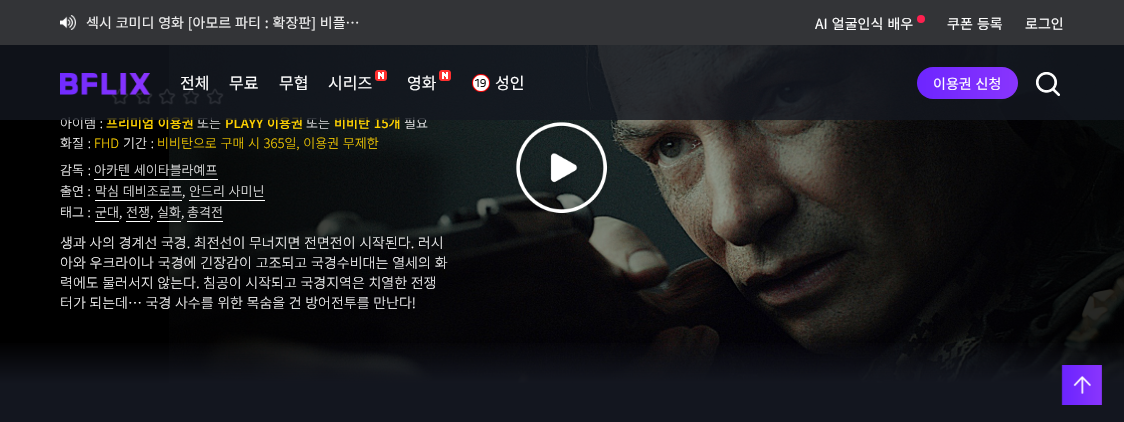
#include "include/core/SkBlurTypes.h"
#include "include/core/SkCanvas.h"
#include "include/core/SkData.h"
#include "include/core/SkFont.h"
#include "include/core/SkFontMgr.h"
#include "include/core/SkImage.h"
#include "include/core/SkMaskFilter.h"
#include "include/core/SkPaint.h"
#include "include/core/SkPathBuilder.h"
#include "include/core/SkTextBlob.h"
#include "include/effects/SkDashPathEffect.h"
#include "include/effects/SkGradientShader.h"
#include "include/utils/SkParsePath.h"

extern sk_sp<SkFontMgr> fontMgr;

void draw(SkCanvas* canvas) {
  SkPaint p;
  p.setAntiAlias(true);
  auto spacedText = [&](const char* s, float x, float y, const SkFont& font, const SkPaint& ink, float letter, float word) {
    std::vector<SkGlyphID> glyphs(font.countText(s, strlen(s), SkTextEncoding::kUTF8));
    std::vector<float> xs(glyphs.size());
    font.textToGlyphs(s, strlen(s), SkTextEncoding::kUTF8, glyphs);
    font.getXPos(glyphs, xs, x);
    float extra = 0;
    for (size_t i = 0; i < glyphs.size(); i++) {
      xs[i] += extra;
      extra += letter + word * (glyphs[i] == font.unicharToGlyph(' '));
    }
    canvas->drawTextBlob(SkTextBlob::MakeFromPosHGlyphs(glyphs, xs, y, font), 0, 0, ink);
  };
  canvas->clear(SkColorSetRGB(19, 22, 31));
  p.setColor(SkColorSetRGB(51, 52, 55));
  canvas->drawRect(SkRect::MakeLTRB(0, 0, 1124, 45), p);
  canvas->drawImageRect(SkImages::DeferredFromEncodedData(SkData::MakeFromFileName("images/1.png")), SkRect::MakeLTRB(60, 15, 76, 30), SkSamplingOptions());
  p.setColor(SkColorSetRGB(255, 32, 79));
  canvas->drawCircle(921, 19, 4, p);
  p.setColor(SK_ColorBLACK);
  canvas->drawRect(SkRect::MakeLTRB(0, 45, 1124, 383), p);
  canvas->drawImageRect(SkImages::DeferredFromEncodedData(SkData::MakeFromFileName("images/7.png")), SkRect::MakeLTRB(169, 45, 1124, 383), SkSamplingOptions());
  {
    const SkColor colors[] = {SkColorSetARGB(204, 0, 0, 0), SkColorSetARGB(204, 0, 0, 0), SkColorSetARGB(82, 0, 0, 0), SkColorSetARGB(20, 0, 0, 0), SkColorSetARGB(0, 0, 0, 0)};
    const float stops[] = {0, 0.05f, 0.4f, 0.75f, 1};
    const SkPoint ends[] = {{168, 166}, {1124, 166}};
    p.setShader(SkGradientShader::MakeLinear(ends, colors, stops, 5, SkTileMode::kClamp));
    p.setAlpha(255);
  }
  canvas->drawRect(SkRect::MakeLTRB(169, 45, 1060, 383), p);
  {
    const SkColor colors[] = {SkColorSetARGB(0, 0, 0, 0), SkColorSetARGB(0, 0, 0, 0), SkColorSetARGB(133, 0, 0, 0), SkColorSetARGB(204, 0, 0, 0), SkColorSetARGB(204, 0, 0, 0)};
    const float stops[] = {0.02f, 0.6f, 0.85f, 0.95f, 1};
    const SkPoint ends[] = {{169, 166}, {1124, 166}};
    p.setShader(SkGradientShader::MakeLinear(ends, colors, stops, 5, SkTileMode::kClamp));
    p.setAlpha(255);
  }
  canvas->drawRect(SkRect::MakeLTRB(752, 45, 1124, 383), p);
  canvas->drawImageRect(SkImages::DeferredFromEncodedData(SkData::MakeFromFileName("images/8.png")), SkRect::MakeLTRB(111, 88, 129, 105), SkSamplingOptions());
  canvas->drawImageRect(SkImages::DeferredFromEncodedData(SkData::MakeFromFileName("images/9.png")), SkRect::MakeLTRB(135, 88, 153, 105), SkSamplingOptions());
  canvas->drawImageRect(SkImages::DeferredFromEncodedData(SkData::MakeFromFileName("images/10.png")), SkRect::MakeLTRB(158, 88, 176, 105), SkSamplingOptions());
  canvas->drawImageRect(SkImages::DeferredFromEncodedData(SkData::MakeFromFileName("images/11.png")), SkRect::MakeLTRB(182, 88, 200, 105), SkSamplingOptions());
  canvas->drawImageRect(SkImages::DeferredFromEncodedData(SkData::MakeFromFileName("images/12.png")), SkRect::MakeLTRB(206, 88, 224, 105), SkSamplingOptions());
  p.setShader(nullptr);
  p.setColor(SK_ColorWHITE);
  canvas->drawRect(SkRect::MakeLTRB(94, 179, 218, 180), p);
  canvas->drawRect(SkRect::MakeLTRB(95, 200, 182, 201), p);
  canvas->drawRect(SkRect::MakeLTRB(189, 200, 265, 201), p);
  canvas->drawRect(SkRect::MakeLTRB(95, 221, 119, 222), p);
  canvas->drawRect(SkRect::MakeLTRB(126, 221, 150, 222), p);
  canvas->drawRect(SkRect::MakeLTRB(157, 221, 181, 222), p);
  canvas->drawRect(SkRect::MakeLTRB(187, 221, 223, 222), p);
  canvas->drawImageRect(SkImages::DeferredFromEncodedData(SkData::MakeFromFileName("images/13.png")), SkRect::MakeLTRB(516, 122, 607, 213), SkSamplingOptions());
  {
    const SkColor colors[] = {SkColorSetARGB(0, 0, 0, 0), SkColorSetARGB(0, 19, 22, 31), SkColorSetRGB(19, 22, 31)};
    const float stops[] = {0, 0.89f, 0.99f};
    const SkPoint ends[] = {{562, -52}, {562, 388}};
    p.setShader(SkGradientShader::MakeLinear(ends, colors, stops, 3, SkTileMode::kClamp));
    p.setAlpha(255);
  }
  canvas->drawRect(SkRect::MakeLTRB(0, 343, 1124, 383), p);
  canvas->drawImageRect(SkImages::DeferredFromEncodedData(SkData::MakeFromFileName("images/14.png")), SkRect::MakeLTRB(1061, 365, 1102, 405), SkSamplingOptions());
  SkFont font1(fontMgr->matchFamilyStyle("Noto Sans KR", SkFontStyle::Normal()), 14);
  font1.setSubpixel(true);
  p.setShader(nullptr);
  p.setColor(SkColorSetRGB(238, 238, 238));
  spacedText("섹시 코미디 영화 [아모르 파티 : 확장판] 비플…", 86, 28, font1, p, 0, 0.75f);
  p.setColor(SK_ColorWHITE);
  spacedText("AI 얼굴인식 배우", 815, 29, font1, p, 0, 1);
  spacedText("쿠폰 등록", 947, 29, font1, p, 0, 1);
  canvas->drawString("로그인", 1025, 29, font1, p);
  SkFont font2(fontMgr->matchFamilyStyle("Noto Sans KR", SkFontStyle(300, SkFontStyle::kNormal_Width, SkFontStyle::kUpright_Slant)), 13);
  font2.setSubpixel(true);
  spacedText("아이템 :", 60, 128, font2, p, 0, 1);
  SkFont font3(fontMgr->matchFamilyStyle("Noto Sans KR", SkFontStyle(500, SkFontStyle::kNormal_Width, SkFontStyle::kUpright_Slant)), 13);
  font3.setSubpixel(true);
  p.setColor(SkColorSetRGB(255, 210, 0));
  spacedText("프리미엄 이용권", 106, 128, font3, p, 0, 1);
  p.setColor(SK_ColorWHITE);
  canvas->drawString("또는", 197, 128, font2, p);
  p.setColor(SkColorSetRGB(255, 210, 0));
  spacedText("PLAYY 이용권", 225, 128, font3, p, 0, 1);
  p.setColor(SK_ColorWHITE);
  canvas->drawString("또는", 306, 128, font2, p);
  p.setColor(SkColorSetRGB(255, 210, 0));
  spacedText("비비탄 15개", 334, 128, font3, p, 0, 1);
  p.setColor(SK_ColorWHITE);
  canvas->drawString("필요", 404, 128, font2, p);
  p.setColor(SkColorSetARGB(204, 19, 22, 31));
  canvas->drawRect(SkRect::MakeLTRB(0, 45, 1124, 120), p);
  SkFont font4(fontMgr->matchFamilyStyle("Noto Sans KR", SkFontStyle::Normal()), 16);
  font4.setSubpixel(true);
  p.setColor(SK_ColorWHITE);
  canvas->drawString("성인", 495, 89, font4, p);
  canvas->drawImageRect(SkImages::DeferredFromEncodedData(SkData::MakeFromFileName("images/5.png")), SkRect::MakeLTRB(472, 74, 490, 92), SkSamplingOptions());
  canvas->drawImageRect(SkImages::DeferredFromEncodedData(SkData::MakeFromFileName("images/4.png")), SkRect::MakeLTRB(439, 70, 451, 81), SkSamplingOptions());
  canvas->drawString("영화", 407, 89, font4, p);
  canvas->drawImageRect(SkImages::DeferredFromEncodedData(SkData::MakeFromFileName("images/3.png")), SkRect::MakeLTRB(375, 70, 387, 81), SkSamplingOptions());
  canvas->drawString("시리즈", 328, 89, font4, p);
  canvas->drawString("무협", 279, 89, font4, p);
  canvas->drawString("무료", 229, 89, font4, p);
  canvas->drawString("전체", 180, 89, font4, p);
  canvas->drawImageRect(SkImages::DeferredFromEncodedData(SkData::MakeFromFileName("images/6.png")), SkRect::MakeLTRB(1036, 72, 1060, 96), SkSamplingOptions());
  {
    const SkColor colors[] = {SkColorSetRGB(109, 37, 255), SkColorSetRGB(137, 53, 253)};
    const float stops[] = {0, 1};
    const SkPoint ends[] = {{917, 83}, {1018, 83}};
    p.setShader(SkGradientShader::MakeLinear(ends, colors, stops, 2, SkTileMode::kClamp));
    p.setAlpha(255);
  }
  canvas->drawRoundRect(SkRect::MakeLTRB(917, 67, 1018, 99), 16, 16, p);
  p.setShader(nullptr);
  p.setColor(SK_ColorWHITE);
  spacedText("이용권 신청", 933, 89, font1, p, 0, 0.75f);
  canvas->drawImageRect(SkImages::DeferredFromEncodedData(SkData::MakeFromFileName("images/2.png")), SkRect::MakeLTRB(60, 73, 150, 95), SkSamplingOptions());
  spacedText("화질 :", 60, 148, font2, p, 0, 1);
  p.setColor(SkColorSetRGB(255, 210, 0));
  canvas->drawString("FHD", 94, 148, font2, p);
  p.setColor(SK_ColorWHITE);
  spacedText("기간 :", 123, 148, font2, p, 0, 1);
  p.setColor(SkColorSetRGB(255, 210, 0));
  spacedText("비비탄으로 구매 시 365일, 이용권 무제한", 157, 148, font2, p, 0, 0.75f);
  p.setColor(SK_ColorWHITE);
  spacedText("감독 :", 60, 175, font2, p, 0, 1);
  p.setColor(SkColorSetRGB(238, 238, 238));
  spacedText("아카텐 세이타블라예프", 94, 175, font2, p, 0, 1);
  p.setColor(SK_ColorWHITE);
  spacedText("출연 :", 60, 196, font2, p, 0, 0.75f);
  p.setColor(SkColorSetRGB(238, 238, 238));
  spacedText("막심 데비조로프", 95, 196, font2, p, 0, 1);
  p.setColor(SK_ColorWHITE);
  canvas->drawString(",", 182, 196, font2, p);
  p.setColor(SkColorSetRGB(238, 238, 238));
  spacedText("안드리 사미닌", 189, 196, font2, p, 0, 0.75f);
  p.setColor(SK_ColorWHITE);
  spacedText("태그 :", 60, 217, font2, p, 0, 0.75f);
  p.setColor(SkColorSetRGB(238, 238, 238));
  canvas->drawString("군대", 95, 217, font2, p);
  p.setColor(SK_ColorWHITE);
  canvas->drawString(",", 119, 217, font2, p);
  p.setColor(SkColorSetRGB(238, 238, 238));
  canvas->drawString("전쟁", 126, 217, font2, p);
  p.setColor(SK_ColorWHITE);
  canvas->drawString(",", 150, 217, font2, p);
  p.setColor(SkColorSetRGB(238, 238, 238));
  canvas->drawString("실화", 157, 217, font2, p);
  p.setColor(SK_ColorWHITE);
  canvas->drawString(",", 181, 217, font2, p);
  p.setColor(SkColorSetRGB(238, 238, 238));
  canvas->drawString("총격전", 187, 217, font2, p);
  SkFont font5(fontMgr->matchFamilyStyle("Noto Sans KR", SkFontStyle(300, SkFontStyle::kNormal_Width, SkFontStyle::kUpright_Slant)), 14);
  font5.setSubpixel(true);
  p.setColor(SK_ColorWHITE);
  spacedText("생과 사의 경계선 국경. 최전선이 무너지면 전면전이 시작된다. 러시", 60, 248, font5, p, 0, 0.5f);
  spacedText("아와 우크라이나 국경에 긴장감이 고조되고 국경수비대는 열세의 화", 60, 268, font5, p, 0, 0.75f);
  spacedText("력에도 물러서지 않는다. 침공이 시작되고 국경지역은 치열한 전쟁", 60, 288, font5, p, 0, 0.5f);
  spacedText("터가 되는데… 국경 사수를 위한 목숨을 건 방어전투를 만난다!", 60, 308, font5, p, 0, 0.5f);
}
